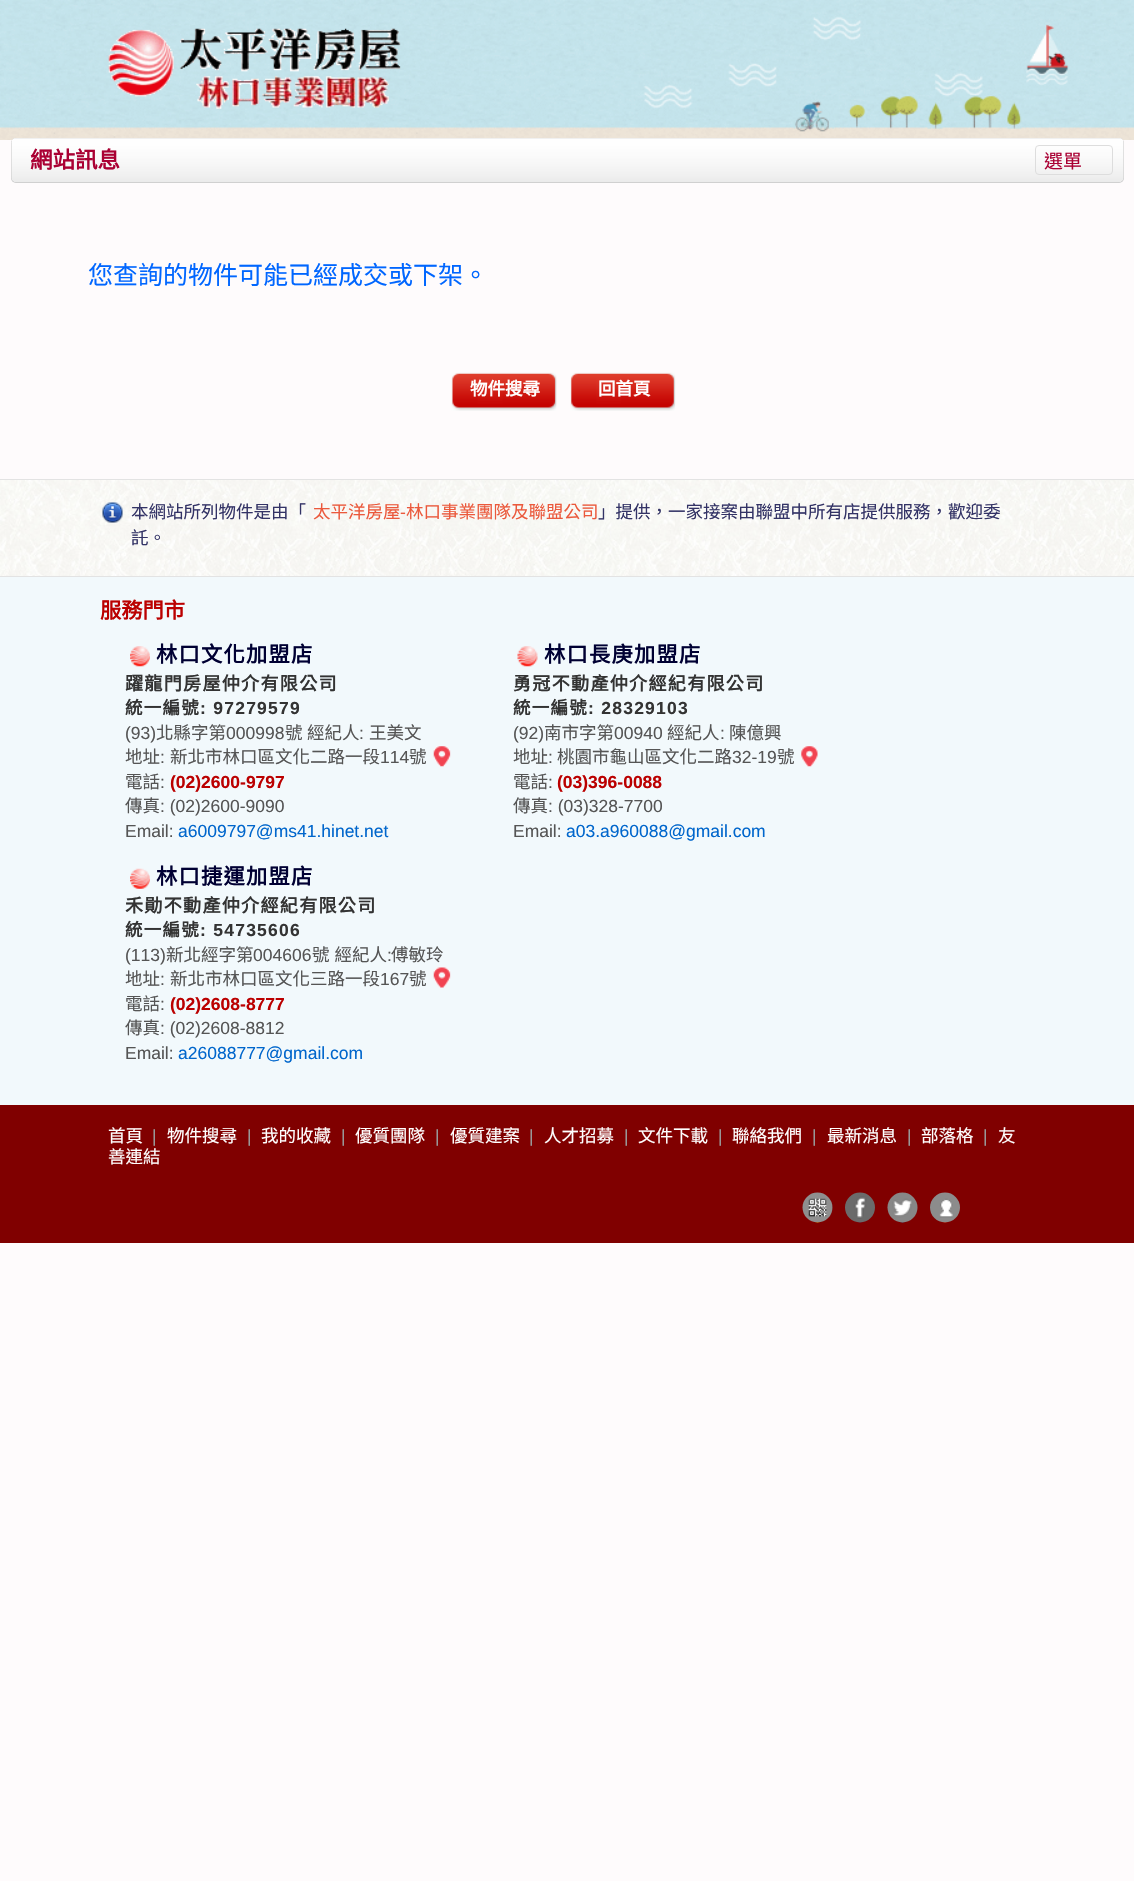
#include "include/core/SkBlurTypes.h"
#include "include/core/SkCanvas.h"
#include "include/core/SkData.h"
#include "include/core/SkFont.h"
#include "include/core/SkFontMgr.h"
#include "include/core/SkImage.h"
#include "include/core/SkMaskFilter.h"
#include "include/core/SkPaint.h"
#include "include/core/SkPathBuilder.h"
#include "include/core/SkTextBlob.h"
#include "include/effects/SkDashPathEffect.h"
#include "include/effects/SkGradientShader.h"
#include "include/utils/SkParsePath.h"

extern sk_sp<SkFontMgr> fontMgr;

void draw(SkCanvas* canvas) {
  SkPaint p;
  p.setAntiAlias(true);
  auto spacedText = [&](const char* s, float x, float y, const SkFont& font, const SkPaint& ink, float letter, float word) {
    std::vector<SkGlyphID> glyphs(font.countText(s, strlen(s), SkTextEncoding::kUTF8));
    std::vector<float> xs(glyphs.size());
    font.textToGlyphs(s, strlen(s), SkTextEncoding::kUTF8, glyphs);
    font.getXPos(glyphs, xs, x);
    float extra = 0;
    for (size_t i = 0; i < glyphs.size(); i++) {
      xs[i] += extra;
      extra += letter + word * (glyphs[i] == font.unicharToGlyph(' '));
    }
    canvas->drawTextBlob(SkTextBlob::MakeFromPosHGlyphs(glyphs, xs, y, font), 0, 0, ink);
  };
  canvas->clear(SkColorSetRGB(254, 251, 252));
  canvas->drawImageRect(SkImages::DeferredFromEncodedData(SkData::MakeFromFileName("images/1.png")), SkRect::MakeLTRB(0, 0, 1134, 140), SkSamplingOptions());
  canvas->drawImageRect(SkImages::DeferredFromEncodedData(SkData::MakeFromFileName("images/2.png")), SkRect::MakeLTRB(108, 28, 401, 109), SkSamplingOptions());
  p.setColor(SkColorSetRGB(204, 204, 204));
  canvas->drawRoundRect(SkRect::MakeLTRB(11, 138, 1124, 183), 5, 5, p);
  canvas->drawImageRect(SkImages::DeferredFromEncodedData(SkData::MakeFromFileName("images/3.png")), SkRect::MakeLTRB(11, 138, 1124, 183), SkSamplingOptions());
  p.setStyle(SkPaint::kStroke_Style);
  p.setStrokeWidth(1);
  p.setColor(SkColorSetRGB(221, 221, 221));
  canvas->drawRoundRect(SkRect::MakeLTRB(1035.5f, 145.5f, 1112.5f, 174.5f), 3.5f, 3.5f, p);
  canvas->drawImageRect(SkImages::DeferredFromEncodedData(SkData::MakeFromFileName("images/4.png")), SkRect::MakeLTRB(451, 372, 557, 411), SkSamplingOptions());
  canvas->drawImageRect(SkImages::DeferredFromEncodedData(SkData::MakeFromFileName("images/5.png")), SkRect::MakeLTRB(570, 372, 676, 411), SkSamplingOptions());
  canvas->drawImageRect(SkImages::DeferredFromEncodedData(SkData::MakeFromFileName("images/6.png")), SkRect::MakeLTRB(0, 480, 1134, 576), SkSamplingOptions());
  p.setStyle(SkPaint::kFill_Style);
  p.setColor(SkColorSetRGB(227, 227, 227));
  canvas->drawRect(SkRect::MakeLTRB(0, 479, 1134, 480), p);
  canvas->drawImageRect(SkImages::DeferredFromEncodedData(SkData::MakeFromFileName("images/7.png")), SkRect::MakeLTRB(102, 502, 123, 523), SkSamplingOptions());
  p.setColor(SkColorSetRGB(242, 249, 252));
  canvas->drawRect(SkRect::MakeLTRB(0, 577, 1134, 1105), p);
  p.setColor(SkColorSetRGB(227, 227, 227));
  canvas->drawRect(SkRect::MakeLTRB(0, 576, 1134, 577), p);
  canvas->drawImageRect(SkImages::DeferredFromEncodedData(SkData::MakeFromFileName("images/8.png")), SkRect::MakeLTRB(130, 646, 150, 667), SkSamplingOptions());
  canvas->drawImageRect(SkImages::DeferredFromEncodedData(SkData::MakeFromFileName("images/9.png")), SkRect::MakeLTRB(433, 746, 451, 767), SkSamplingOptions());
  canvas->drawImageRect(SkImages::DeferredFromEncodedData(SkData::MakeFromFileName("images/10.png")), SkRect::MakeLTRB(517, 646, 538, 667), SkSamplingOptions());
  canvas->drawImageRect(SkImages::DeferredFromEncodedData(SkData::MakeFromFileName("images/11.png")), SkRect::MakeLTRB(801, 746, 818, 767), SkSamplingOptions());
  canvas->drawImageRect(SkImages::DeferredFromEncodedData(SkData::MakeFromFileName("images/12.png")), SkRect::MakeLTRB(130, 868, 150, 889), SkSamplingOptions());
  canvas->drawImageRect(SkImages::DeferredFromEncodedData(SkData::MakeFromFileName("images/13.png")), SkRect::MakeLTRB(433, 967, 451, 988), SkSamplingOptions());
  p.setColor(SkColorSetRGB(128, 0, 0));
  canvas->drawRect(SkRect::MakeLTRB(0, 1105, 1134, 1243), p);
  canvas->drawImageRect(SkImages::DeferredFromEncodedData(SkData::MakeFromFileName("images/14.png")), SkRect::MakeLTRB(802, 1192, 833, 1223), SkSamplingOptions());
  canvas->drawImageRect(SkImages::DeferredFromEncodedData(SkData::MakeFromFileName("images/15.png")), SkRect::MakeLTRB(845, 1192, 875, 1223), SkSamplingOptions());
  canvas->drawImageRect(SkImages::DeferredFromEncodedData(SkData::MakeFromFileName("images/16.png")), SkRect::MakeLTRB(887, 1192, 918, 1223), SkSamplingOptions());
  canvas->drawImageRect(SkImages::DeferredFromEncodedData(SkData::MakeFromFileName("images/17.png")), SkRect::MakeLTRB(930, 1192, 960, 1223), SkSamplingOptions());
  SkFont font1(fontMgr->matchFamilyStyle("Noto Sans CJK TC", SkFontStyle::Bold()), 22.5f);
  font1.setSubpixel(true);
  p.setColor(SkColorSetRGB(170, 0, 51));
  canvas->drawString("網站訊息", 30, 168, font1, p);
  SkFont font2(fontMgr->matchFamilyStyle("Noto Sans CJK TC", SkFontStyle::Normal()), 19);
  font2.setSubpixel(true);
  canvas->drawString("選單", 1044, 168, font2, p);
  SkFont font3(fontMgr->matchFamilyStyle("Noto Sans CJK TC", SkFontStyle::Normal()), 25);
  font3.setSubpixel(true);
  p.setColor(SkColorSetRGB(0, 102, 255));
  canvas->drawString("您查詢的物件可能已經成交或下架。", 88, 284, font3, p);
  SkFont font4(fontMgr->matchFamilyStyle("Noto Sans CJK TC", SkFontStyle::Bold()), 17.5f);
  font4.setSubpixel(true);
  p.setColor(SK_ColorWHITE);
  canvas->drawString("物件搜尋", 470, 395, font4, p);
  canvas->drawString("回首頁", 598, 395, font4, p);
  SkFont font5(fontMgr->matchFamilyStyle("Noto Sans CJK TC", SkFontStyle::Normal()), 17.5f);
  font5.setSubpixel(true);
  p.setColor(SkColorSetRGB(51, 51, 102));
  canvas->drawString("本網站所列物件是由「", 131, 518, font5, p);
  p.setColor(SkColorSetRGB(235, 89, 60));
  canvas->drawString("太平洋房屋", 313, 518, font5, p);
  SkFont font6(fontMgr->matchFamilyStyle("Liberation Sans", SkFontStyle::Normal()), 17.5f);
  font6.setSubpixel(true);
  canvas->drawString("-", 400, 518, font6, p);
  canvas->drawString("林口事業團隊及聯盟公司", 406, 518, font5, p);
  p.setColor(SkColorSetRGB(51, 51, 102));
  canvas->drawString("」提供，一家接案由聯盟中所有店提供服務，歡迎委", 598, 518, font5, p);
  canvas->drawString("託。", 131, 544, font5, p);
  SkFont font7(fontMgr->matchFamilyStyle("Noto Sans CJK TC", SkFontStyle::Bold()), 21.25f);
  font7.setSubpixel(true);
  p.setColor(SkColorSetRGB(187, 0, 0));
  canvas->drawString("服務門市", 100, 618, font7, p);
  p.setColor(SkColorSetRGB(0, 0, 51));
  spacedText("林口文化加盟店", 156, 662, font7, p, 1.25f, 0);
  SkFont font8(fontMgr->matchFamilyStyle("Noto Sans CJK TC", SkFontStyle::Bold()), 18.1f);
  font8.setSubpixel(true);
  p.setColor(SkColorSetRGB(51, 51, 51));
  spacedText("躍龍門房屋仲介有限公司", 125, 690, font8, p, 1.25f, 0);
  spacedText("統一編號", 125, 714, font4, p, 1.25f, 0);
  SkFont font9(fontMgr->matchFamilyStyle("Liberation Sans", SkFontStyle::Bold()), 17.5f);
  font9.setSubpixel(true);
  spacedText(": 97279579", 200, 714, font9, p, 1.25f, 0);
  p.setColor(SkColorSetRGB(85, 85, 85));
  canvas->drawString("(93)", 125, 739, font6, p);
  canvas->drawString("北縣字第", 156, 739, font5, p);
  canvas->drawString("000998", 226, 739, font6, p);
  canvas->drawString("號", 285, 739, font5, p);
  canvas->drawString("經紀人", 307, 739, font5, p);
  canvas->drawString(":", 359, 739, font6, p);
  canvas->drawString("王美文", 369, 739, font5, p);
  canvas->drawString("地址", 125, 763, font5, p);
  canvas->drawString(":", 160, 763, font6, p);
  canvas->drawString("新北市林口區文化二路一段", 170, 763, font5, p);
  canvas->drawString("114", 380, 763, font6, p);
  canvas->drawString("號", 409, 763, font5, p);
  canvas->drawString("電話", 125, 788, font5, p);
  canvas->drawString(":", 160, 788, font6, p);
  p.setColor(SkColorSetRGB(187, 0, 0));
  canvas->drawString("(02)2600-9797", 170, 788, font9, p);
  p.setColor(SkColorSetRGB(85, 85, 85));
  canvas->drawString("傳真", 125, 812, font5, p);
  canvas->drawString(": (02)2600-9090", 160, 812, font6, p);
  canvas->drawString("Email:", 125, 837, font6, p);
  p.setColor(SkColorSetRGB(0, 102, 204));
  canvas->drawString("a6009797@ms41.hinet.net", 178, 837, font6, p);
  p.setColor(SkColorSetRGB(0, 0, 51));
  spacedText("林口長庚加盟店", 544, 662, font7, p, 1.25f, 0);
  p.setColor(SkColorSetRGB(51, 51, 51));
  spacedText("勇冠不動產仲介經紀有限公司", 513, 690, font8, p, 1.25f, 0);
  spacedText("統一編號", 513, 714, font4, p, 1.25f, 0);
  spacedText(": 28329103", 588, 714, font9, p, 1.25f, 0);
  p.setColor(SkColorSetRGB(85, 85, 85));
  canvas->drawString("(92)", 513, 739, font6, p);
  canvas->drawString("南市字第", 544, 739, font5, p);
  canvas->drawString("00940", 614, 739, font6, p);
  canvas->drawString("經紀人", 667, 739, font5, p);
  canvas->drawString(":", 720, 739, font6, p);
  canvas->drawString("陳億興", 729, 739, font5, p);
  canvas->drawString("地址", 513, 763, font5, p);
  canvas->drawString(":", 548, 763, font6, p);
  canvas->drawString("桃園市龜山區文化二路", 557, 763, font5, p);
  canvas->drawString("32-19", 732, 763, font6, p);
  canvas->drawString("號", 777, 763, font5, p);
  canvas->drawString("電話", 513, 788, font5, p);
  canvas->drawString(":", 548, 788, font6, p);
  p.setColor(SkColorSetRGB(187, 0, 0));
  canvas->drawString("(03)396-0088", 557, 788, font9, p);
  p.setColor(SkColorSetRGB(85, 85, 85));
  canvas->drawString("傳真", 513, 812, font5, p);
  canvas->drawString(": (03)328-7700", 548, 812, font6, p);
  canvas->drawString("Email:", 513, 837, font6, p);
  p.setColor(SkColorSetRGB(0, 102, 204));
  canvas->drawString("a03.a960088@gmail.com", 566, 837, font6, p);
  p.setColor(SkColorSetRGB(0, 0, 51));
  spacedText("林口捷運加盟店", 156, 884, font7, p, 1.25f, 0);
  p.setColor(SkColorSetRGB(51, 51, 51));
  spacedText("禾勛不動產仲介經紀有限公司", 125, 912, font8, p, 1.25f, 0);
  spacedText("統一編號", 125, 936, font4, p, 1.25f, 0);
  spacedText(": 54735606", 200, 936, font9, p, 1.25f, 0);
  p.setColor(SkColorSetRGB(85, 85, 85));
  canvas->drawString("(113)", 125, 961, font6, p);
  canvas->drawString("新北經字第", 166, 961, font5, p);
  canvas->drawString("004606", 253, 961, font6, p);
  spacedText("號 經紀人", 312, 961, font5, p, 0, 1);
  canvas->drawString(":", 387, 961, font6, p);
  canvas->drawString("傅敏玲", 391, 961, font5, p);
  canvas->drawString("地址", 125, 985, font5, p);
  canvas->drawString(":", 160, 985, font6, p);
  canvas->drawString("新北市林口區文化三路一段", 170, 985, font5, p);
  canvas->drawString("167", 380, 985, font6, p);
  canvas->drawString("號", 409, 985, font5, p);
  canvas->drawString("電話", 125, 1010, font5, p);
  canvas->drawString(":", 160, 1010, font6, p);
  p.setColor(SkColorSetRGB(187, 0, 0));
  canvas->drawString("(02)2608-8777", 170, 1010, font9, p);
  p.setColor(SkColorSetRGB(85, 85, 85));
  canvas->drawString("傳真", 125, 1034, font5, p);
  canvas->drawString(": (02)2608-8812", 160, 1034, font6, p);
  canvas->drawString("Email:", 125, 1059, font6, p);
  p.setColor(SkColorSetRGB(0, 102, 204));
  canvas->drawString("a26088777@gmail.com", 178, 1059, font6, p);
  p.setColor(SK_ColorWHITE);
  canvas->drawString("首頁", 108, 1142, font5, p);
  p.setColor(SkColorSetRGB(153, 153, 153));
  canvas->drawString("|", 152, 1142, font6, p);
  p.setColor(SK_ColorWHITE);
  canvas->drawString("物件搜尋", 167, 1142, font5, p);
  p.setColor(SkColorSetRGB(153, 153, 153));
  canvas->drawString("|", 247, 1142, font6, p);
  p.setColor(SK_ColorWHITE);
  canvas->drawString("我的收藏", 261, 1142, font5, p);
  p.setColor(SkColorSetRGB(153, 153, 153));
  canvas->drawString("|", 341, 1142, font6, p);
  p.setColor(SK_ColorWHITE);
  canvas->drawString("優質團隊", 355, 1142, font5, p);
  p.setColor(SkColorSetRGB(153, 153, 153));
  canvas->drawString("|", 435, 1142, font6, p);
  p.setColor(SK_ColorWHITE);
  canvas->drawString("優質建案", 450, 1142, font5, p);
  p.setColor(SkColorSetRGB(153, 153, 153));
  canvas->drawString("|", 529, 1142, font6, p);
  p.setColor(SK_ColorWHITE);
  canvas->drawString("人才招募", 544, 1142, font5, p);
  p.setColor(SkColorSetRGB(153, 153, 153));
  canvas->drawString("|", 624, 1142, font6, p);
  p.setColor(SK_ColorWHITE);
  canvas->drawString("文件下載", 638, 1142, font5, p);
  p.setColor(SkColorSetRGB(153, 153, 153));
  canvas->drawString("|", 718, 1142, font6, p);
  p.setColor(SK_ColorWHITE);
  canvas->drawString("聯絡我們", 732, 1142, font5, p);
  p.setColor(SkColorSetRGB(153, 153, 153));
  canvas->drawString("|", 812, 1142, font6, p);
  p.setColor(SK_ColorWHITE);
  canvas->drawString("最新消息", 827, 1142, font5, p);
  p.setColor(SkColorSetRGB(153, 153, 153));
  canvas->drawString("|", 907, 1142, font6, p);
  p.setColor(SK_ColorWHITE);
  canvas->drawString("部落格", 921, 1142, font5, p);
  p.setColor(SkColorSetRGB(153, 153, 153));
  canvas->drawString("|", 983, 1142, font6, p);
  p.setColor(SK_ColorWHITE);
  canvas->drawString("友", 998, 1142, font5, p);
  canvas->drawString("善連結", 108, 1163, font5, p);
}
